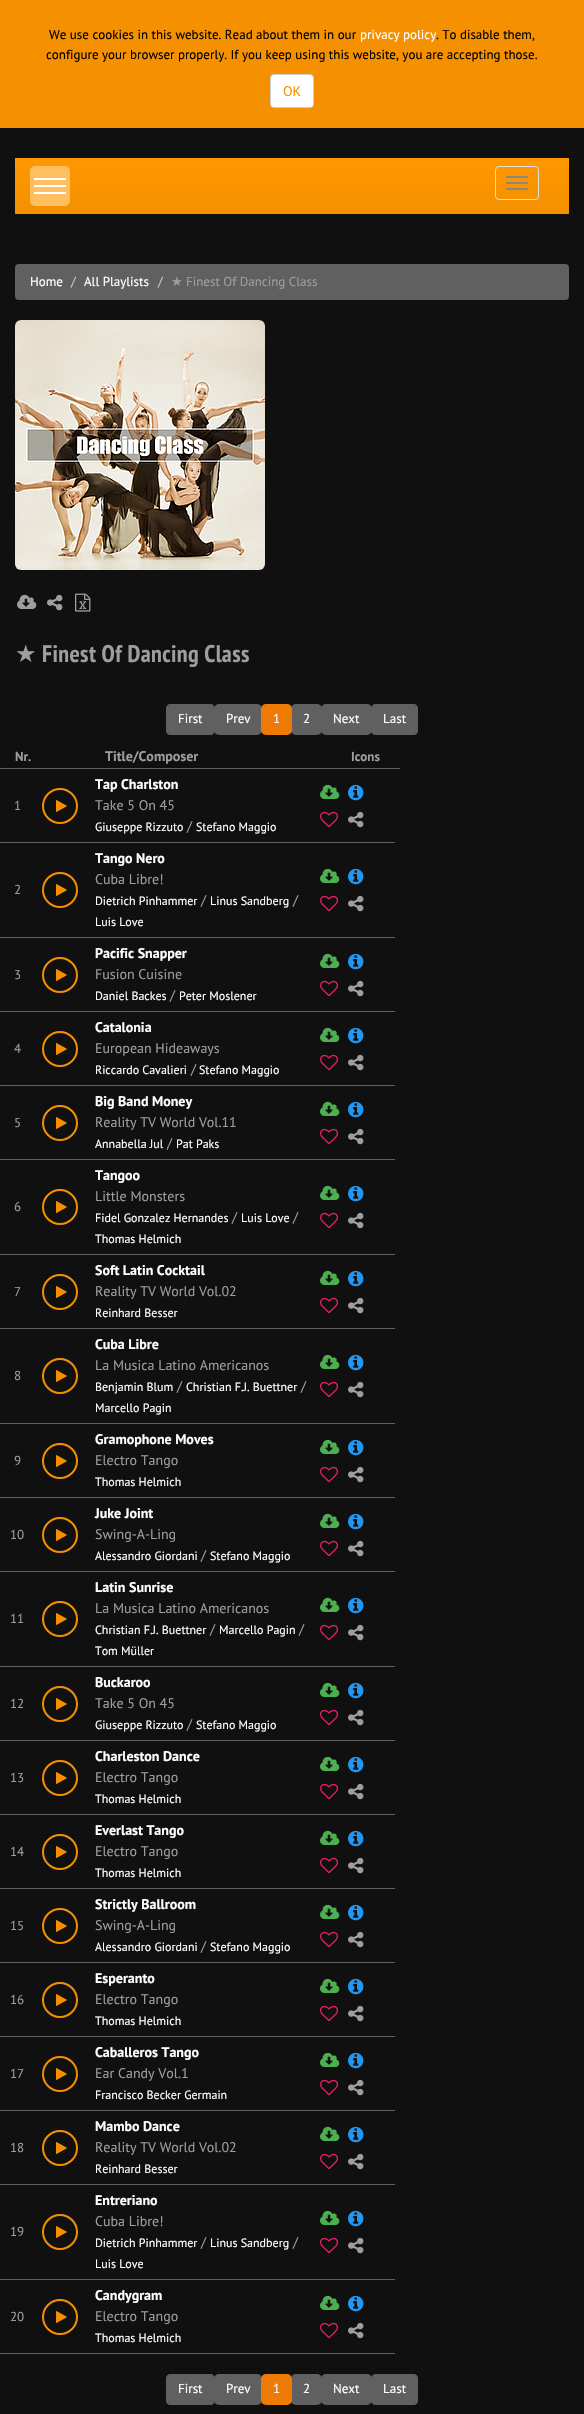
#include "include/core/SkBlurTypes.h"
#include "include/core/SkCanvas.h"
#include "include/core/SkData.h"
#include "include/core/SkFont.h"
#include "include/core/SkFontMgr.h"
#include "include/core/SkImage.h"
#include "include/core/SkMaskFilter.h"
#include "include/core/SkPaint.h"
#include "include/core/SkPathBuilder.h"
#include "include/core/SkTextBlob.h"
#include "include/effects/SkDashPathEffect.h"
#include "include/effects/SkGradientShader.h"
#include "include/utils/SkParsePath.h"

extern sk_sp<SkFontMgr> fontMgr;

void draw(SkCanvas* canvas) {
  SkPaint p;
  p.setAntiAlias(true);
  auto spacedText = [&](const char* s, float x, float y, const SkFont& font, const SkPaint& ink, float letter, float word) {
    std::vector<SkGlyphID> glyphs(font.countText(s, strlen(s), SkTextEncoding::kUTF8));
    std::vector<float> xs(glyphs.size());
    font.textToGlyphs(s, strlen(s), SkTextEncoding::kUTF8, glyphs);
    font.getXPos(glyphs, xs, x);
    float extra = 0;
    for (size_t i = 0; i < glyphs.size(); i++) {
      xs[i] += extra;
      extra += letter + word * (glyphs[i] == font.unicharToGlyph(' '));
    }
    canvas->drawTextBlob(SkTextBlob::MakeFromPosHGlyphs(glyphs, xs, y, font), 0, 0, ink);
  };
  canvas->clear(SkColorSetRGB(16, 16, 16));
  p.setColor(SkColorSetRGB(245, 145, 0));
  canvas->drawRect(SkRect::MakeLTRB(0, 0, 584, 128), p);
  p.setColor(SK_ColorWHITE);
  canvas->drawRoundRect(SkRect::MakeLTRB(270.5f, 74.5f, 313.5f, 107.5f), 3.5f, 3.5f, p);
  p.setStyle(SkPaint::kStroke_Style);
  p.setStrokeWidth(1);
  p.setColor(SkColorSetRGB(204, 204, 204));
  canvas->drawRoundRect(SkRect::MakeLTRB(270.5f, 74.5f, 313.5f, 107.5f), 3.5f, 3.5f, p);
  p.setStyle(SkPaint::kFill_Style);
  {
    const SkColor colors[] = {SkColorSetRGB(255, 152, 0), SkColorSetRGB(244, 144, 0)};
    const float stops[] = {0, 1};
    const SkPoint ends[] = {{292, 158}, {292, 214}};
    p.setShader(SkGradientShader::MakeLinear(ends, colors, stops, 2, SkTileMode::kClamp));
    p.setAlpha(255);
  }
  canvas->drawRect(SkRect::MakeLTRB(15, 158, 569, 214), p);
  p.setShader(nullptr);
  p.setColor(SkColorSetRGB(255, 190, 96));
  canvas->drawRoundRect(SkRect::MakeLTRB(30, 166, 70, 206), 5, 5, p);
  p.setColor(SK_ColorWHITE);
  canvas->drawRect(SkRect::MakeLTRB(34, 178, 66, 180), p);
  canvas->drawRect(SkRect::MakeLTRB(34, 185, 66, 187), p);
  canvas->drawRect(SkRect::MakeLTRB(34, 192, 66, 194), p);
  p.setStyle(SkPaint::kStroke_Style);
  p.setColor(SkColorSetRGB(221, 221, 221));
  canvas->drawRoundRect(SkRect::MakeLTRB(495.5f, 166.5f, 538.5f, 199.5f), 3.5f, 3.5f, p);
  p.setStyle(SkPaint::kFill_Style);
  p.setColor(SkColorSetRGB(136, 136, 136));
  canvas->drawRoundRect(SkRect::MakeLTRB(506, 176, 528, 178), 1, 1, p);
  canvas->drawRoundRect(SkRect::MakeLTRB(506, 182, 528, 184), 1, 1, p);
  canvas->drawRoundRect(SkRect::MakeLTRB(506, 188, 528, 190), 1, 1, p);
  p.setColor(SkColorSetRGB(97, 96, 96));
  canvas->drawRoundRect(SkRect::MakeLTRB(15, 264, 569, 300), 4, 4, p);
  canvas->drawImageRect(SkImages::DeferredFromEncodedData(SkData::MakeFromFileName("images/1.png")), SkRect::MakeLTRB(15, 320, 265, 570), SkSamplingOptions());
  canvas->drawImageRect(SkImages::DeferredFromEncodedData(SkData::MakeFromFileName("images/2.png")), SkRect::MakeLTRB(17, 594, 37, 609), SkSamplingOptions());
  canvas->drawImageRect(SkImages::DeferredFromEncodedData(SkData::MakeFromFileName("images/3.png")), SkRect::MakeLTRB(47, 594, 63, 611), SkSamplingOptions());
  canvas->drawImageRect(SkImages::DeferredFromEncodedData(SkData::MakeFromFileName("images/4.png")), SkRect::MakeLTRB(75, 593, 91, 612), SkSamplingOptions());
  canvas->drawPath(SkPathBuilder().moveTo(170, 704).lineTo(210, 704).cubicTo(213, 704, 215, 706, 215, 709).lineTo(215, 730).cubicTo(215, 733, 213, 735, 210, 735).lineTo(170, 735).cubicTo(168, 735, 166, 733, 166, 731).lineTo(166, 708).cubicTo(166, 706, 168, 704, 170, 704).close().detach(), p);
  canvas->drawRoundRect(SkRect::MakeLTRB(214, 704, 262, 735), 5, 5, p);
  canvas->drawRoundRect(SkRect::MakeLTRB(291, 704, 322, 735), 5, 5, p);
  p.setColor(SkColorSetRGB(237, 123, 5));
  canvas->drawRoundRect(SkRect::MakeLTRB(261, 704, 292, 735), 5, 5, p);
  p.setColor(SkColorSetRGB(97, 96, 96));
  canvas->drawRoundRect(SkRect::MakeLTRB(321, 704, 372, 735), 5, 5, p);
  canvas->drawPath(SkPathBuilder().moveTo(376, 704).lineTo(414, 704).cubicTo(416, 704, 418, 706, 418, 708).lineTo(418, 731).cubicTo(418, 733, 416, 735, 414, 735).lineTo(376, 735).cubicTo(373, 735, 371, 733, 371, 730).lineTo(371, 709).cubicTo(371, 706, 373, 704, 376, 704).close().detach(), p);
  canvas->drawRect(SkRect::MakeLTRB(0, 768, 400, 769), p);
  canvas->drawRect(SkRect::MakeLTRB(0, 842, 395, 843), p);
  p.setStyle(SkPaint::kStroke_Style);
  p.setStrokeWidth(2);
  p.setColor(SkColorSetRGB(244, 144, 0));
  canvas->drawCircle(60, 806, 17, p);
  canvas->drawImageRect(SkImages::DeferredFromEncodedData(SkData::MakeFromFileName("images/5.png")), SkRect::MakeLTRB(56, 800, 67, 812), SkSamplingOptions());
  canvas->drawImageRect(SkImages::DeferredFromEncodedData(SkData::MakeFromFileName("images/6.png")), SkRect::MakeLTRB(320, 784, 340, 799), SkSamplingOptions());
  canvas->drawImageRect(SkImages::DeferredFromEncodedData(SkData::MakeFromFileName("images/7.png")), SkRect::MakeLTRB(348, 784, 364, 801), SkSamplingOptions());
  canvas->drawImageRect(SkImages::DeferredFromEncodedData(SkData::MakeFromFileName("images/8.png")), SkRect::MakeLTRB(320, 811, 338, 828), SkSamplingOptions());
  canvas->drawImageRect(SkImages::DeferredFromEncodedData(SkData::MakeFromFileName("images/3.png")), SkRect::MakeLTRB(348, 811, 364, 828), SkSamplingOptions());
  p.setStyle(SkPaint::kFill_Style);
  p.setColor(SkColorSetRGB(97, 96, 96));
  canvas->drawRect(SkRect::MakeLTRB(0, 937, 395, 938), p);
  p.setStyle(SkPaint::kStroke_Style);
  p.setColor(SkColorSetRGB(244, 144, 0));
  canvas->drawCircle(60, 890, 17, p);
  canvas->drawImageRect(SkImages::DeferredFromEncodedData(SkData::MakeFromFileName("images/5.png")), SkRect::MakeLTRB(56, 884, 67, 896), SkSamplingOptions());
  canvas->drawImageRect(SkImages::DeferredFromEncodedData(SkData::MakeFromFileName("images/6.png")), SkRect::MakeLTRB(320, 868, 340, 883), SkSamplingOptions());
  canvas->drawImageRect(SkImages::DeferredFromEncodedData(SkData::MakeFromFileName("images/7.png")), SkRect::MakeLTRB(348, 868, 364, 885), SkSamplingOptions());
  canvas->drawImageRect(SkImages::DeferredFromEncodedData(SkData::MakeFromFileName("images/8.png")), SkRect::MakeLTRB(320, 895, 338, 912), SkSamplingOptions());
  canvas->drawImageRect(SkImages::DeferredFromEncodedData(SkData::MakeFromFileName("images/3.png")), SkRect::MakeLTRB(348, 895, 364, 912), SkSamplingOptions());
  p.setStyle(SkPaint::kFill_Style);
  p.setColor(SkColorSetRGB(97, 96, 96));
  canvas->drawRect(SkRect::MakeLTRB(0, 1011, 395, 1012), p);
  p.setStyle(SkPaint::kStroke_Style);
  p.setColor(SkColorSetRGB(244, 144, 0));
  canvas->drawCircle(60, 975, 17, p);
  canvas->drawImageRect(SkImages::DeferredFromEncodedData(SkData::MakeFromFileName("images/5.png")), SkRect::MakeLTRB(56, 969, 67, 981), SkSamplingOptions());
  canvas->drawImageRect(SkImages::DeferredFromEncodedData(SkData::MakeFromFileName("images/6.png")), SkRect::MakeLTRB(320, 953, 340, 968), SkSamplingOptions());
  canvas->drawImageRect(SkImages::DeferredFromEncodedData(SkData::MakeFromFileName("images/7.png")), SkRect::MakeLTRB(348, 953, 364, 970), SkSamplingOptions());
  canvas->drawImageRect(SkImages::DeferredFromEncodedData(SkData::MakeFromFileName("images/8.png")), SkRect::MakeLTRB(320, 980, 338, 997), SkSamplingOptions());
  canvas->drawImageRect(SkImages::DeferredFromEncodedData(SkData::MakeFromFileName("images/3.png")), SkRect::MakeLTRB(348, 980, 364, 997), SkSamplingOptions());
  p.setStyle(SkPaint::kFill_Style);
  p.setColor(SkColorSetRGB(97, 96, 96));
  canvas->drawRect(SkRect::MakeLTRB(0, 1085, 395, 1086), p);
  p.setStyle(SkPaint::kStroke_Style);
  p.setColor(SkColorSetRGB(244, 144, 0));
  canvas->drawCircle(60, 1049, 17, p);
  canvas->drawImageRect(SkImages::DeferredFromEncodedData(SkData::MakeFromFileName("images/5.png")), SkRect::MakeLTRB(56, 1043, 67, 1055), SkSamplingOptions());
  canvas->drawImageRect(SkImages::DeferredFromEncodedData(SkData::MakeFromFileName("images/6.png")), SkRect::MakeLTRB(320, 1027, 340, 1042), SkSamplingOptions());
  canvas->drawImageRect(SkImages::DeferredFromEncodedData(SkData::MakeFromFileName("images/7.png")), SkRect::MakeLTRB(348, 1027, 364, 1044), SkSamplingOptions());
  canvas->drawImageRect(SkImages::DeferredFromEncodedData(SkData::MakeFromFileName("images/8.png")), SkRect::MakeLTRB(320, 1054, 338, 1071), SkSamplingOptions());
  canvas->drawImageRect(SkImages::DeferredFromEncodedData(SkData::MakeFromFileName("images/3.png")), SkRect::MakeLTRB(348, 1054, 364, 1071), SkSamplingOptions());
  p.setStyle(SkPaint::kFill_Style);
  p.setColor(SkColorSetRGB(97, 96, 96));
  canvas->drawRect(SkRect::MakeLTRB(0, 1159, 395, 1160), p);
  p.setStyle(SkPaint::kStroke_Style);
  p.setColor(SkColorSetRGB(244, 144, 0));
  canvas->drawCircle(60, 1123, 17, p);
  canvas->drawImageRect(SkImages::DeferredFromEncodedData(SkData::MakeFromFileName("images/5.png")), SkRect::MakeLTRB(56, 1117, 67, 1129), SkSamplingOptions());
  canvas->drawImageRect(SkImages::DeferredFromEncodedData(SkData::MakeFromFileName("images/6.png")), SkRect::MakeLTRB(320, 1101, 340, 1116), SkSamplingOptions());
  canvas->drawImageRect(SkImages::DeferredFromEncodedData(SkData::MakeFromFileName("images/7.png")), SkRect::MakeLTRB(348, 1101, 364, 1118), SkSamplingOptions());
  canvas->drawImageRect(SkImages::DeferredFromEncodedData(SkData::MakeFromFileName("images/8.png")), SkRect::MakeLTRB(320, 1128, 338, 1145), SkSamplingOptions());
  canvas->drawImageRect(SkImages::DeferredFromEncodedData(SkData::MakeFromFileName("images/3.png")), SkRect::MakeLTRB(348, 1128, 364, 1145), SkSamplingOptions());
  p.setStyle(SkPaint::kFill_Style);
  p.setColor(SkColorSetRGB(97, 96, 96));
  canvas->drawRect(SkRect::MakeLTRB(0, 1254, 395, 1255), p);
  p.setStyle(SkPaint::kStroke_Style);
  p.setColor(SkColorSetRGB(244, 144, 0));
  canvas->drawCircle(60, 1207, 17, p);
  canvas->drawImageRect(SkImages::DeferredFromEncodedData(SkData::MakeFromFileName("images/5.png")), SkRect::MakeLTRB(56, 1201, 67, 1213), SkSamplingOptions());
  canvas->drawImageRect(SkImages::DeferredFromEncodedData(SkData::MakeFromFileName("images/6.png")), SkRect::MakeLTRB(320, 1185, 340, 1200), SkSamplingOptions());
  canvas->drawImageRect(SkImages::DeferredFromEncodedData(SkData::MakeFromFileName("images/7.png")), SkRect::MakeLTRB(348, 1185, 364, 1202), SkSamplingOptions());
  canvas->drawImageRect(SkImages::DeferredFromEncodedData(SkData::MakeFromFileName("images/8.png")), SkRect::MakeLTRB(320, 1212, 338, 1229), SkSamplingOptions());
  canvas->drawImageRect(SkImages::DeferredFromEncodedData(SkData::MakeFromFileName("images/3.png")), SkRect::MakeLTRB(348, 1212, 364, 1229), SkSamplingOptions());
  p.setStyle(SkPaint::kFill_Style);
  p.setColor(SkColorSetRGB(97, 96, 96));
  canvas->drawRect(SkRect::MakeLTRB(0, 1328, 395, 1329), p);
  p.setStyle(SkPaint::kStroke_Style);
  p.setColor(SkColorSetRGB(244, 144, 0));
  canvas->drawCircle(60, 1292, 17, p);
  canvas->drawImageRect(SkImages::DeferredFromEncodedData(SkData::MakeFromFileName("images/5.png")), SkRect::MakeLTRB(56, 1286, 67, 1298), SkSamplingOptions());
  canvas->drawImageRect(SkImages::DeferredFromEncodedData(SkData::MakeFromFileName("images/6.png")), SkRect::MakeLTRB(320, 1270, 340, 1285), SkSamplingOptions());
  canvas->drawImageRect(SkImages::DeferredFromEncodedData(SkData::MakeFromFileName("images/7.png")), SkRect::MakeLTRB(348, 1270, 364, 1287), SkSamplingOptions());
  canvas->drawImageRect(SkImages::DeferredFromEncodedData(SkData::MakeFromFileName("images/8.png")), SkRect::MakeLTRB(320, 1297, 338, 1314), SkSamplingOptions());
  canvas->drawImageRect(SkImages::DeferredFromEncodedData(SkData::MakeFromFileName("images/3.png")), SkRect::MakeLTRB(348, 1297, 364, 1314), SkSamplingOptions());
  p.setStyle(SkPaint::kFill_Style);
  p.setColor(SkColorSetRGB(97, 96, 96));
  canvas->drawRect(SkRect::MakeLTRB(0, 1423, 395, 1424), p);
  p.setStyle(SkPaint::kStroke_Style);
  p.setColor(SkColorSetRGB(244, 144, 0));
  canvas->drawCircle(60, 1376, 17, p);
  canvas->drawImageRect(SkImages::DeferredFromEncodedData(SkData::MakeFromFileName("images/5.png")), SkRect::MakeLTRB(56, 1370, 67, 1382), SkSamplingOptions());
  canvas->drawImageRect(SkImages::DeferredFromEncodedData(SkData::MakeFromFileName("images/6.png")), SkRect::MakeLTRB(320, 1354, 340, 1369), SkSamplingOptions());
  canvas->drawImageRect(SkImages::DeferredFromEncodedData(SkData::MakeFromFileName("images/7.png")), SkRect::MakeLTRB(348, 1354, 364, 1371), SkSamplingOptions());
  canvas->drawImageRect(SkImages::DeferredFromEncodedData(SkData::MakeFromFileName("images/8.png")), SkRect::MakeLTRB(320, 1381, 338, 1398), SkSamplingOptions());
  canvas->drawImageRect(SkImages::DeferredFromEncodedData(SkData::MakeFromFileName("images/3.png")), SkRect::MakeLTRB(348, 1381, 364, 1398), SkSamplingOptions());
  p.setStyle(SkPaint::kFill_Style);
  p.setColor(SkColorSetRGB(97, 96, 96));
  canvas->drawRect(SkRect::MakeLTRB(0, 1497, 395, 1498), p);
  p.setStyle(SkPaint::kStroke_Style);
  p.setColor(SkColorSetRGB(244, 144, 0));
  canvas->drawCircle(60, 1461, 17, p);
  canvas->drawImageRect(SkImages::DeferredFromEncodedData(SkData::MakeFromFileName("images/5.png")), SkRect::MakeLTRB(56, 1455, 67, 1467), SkSamplingOptions());
  canvas->drawImageRect(SkImages::DeferredFromEncodedData(SkData::MakeFromFileName("images/6.png")), SkRect::MakeLTRB(320, 1439, 340, 1454), SkSamplingOptions());
  canvas->drawImageRect(SkImages::DeferredFromEncodedData(SkData::MakeFromFileName("images/7.png")), SkRect::MakeLTRB(348, 1439, 364, 1456), SkSamplingOptions());
  canvas->drawImageRect(SkImages::DeferredFromEncodedData(SkData::MakeFromFileName("images/8.png")), SkRect::MakeLTRB(320, 1466, 338, 1483), SkSamplingOptions());
  canvas->drawImageRect(SkImages::DeferredFromEncodedData(SkData::MakeFromFileName("images/3.png")), SkRect::MakeLTRB(348, 1466, 364, 1483), SkSamplingOptions());
  p.setStyle(SkPaint::kFill_Style);
  p.setColor(SkColorSetRGB(97, 96, 96));
  canvas->drawRect(SkRect::MakeLTRB(0, 1571, 395, 1572), p);
  p.setStyle(SkPaint::kStroke_Style);
  p.setColor(SkColorSetRGB(244, 144, 0));
  canvas->drawCircle(60, 1535, 17, p);
  canvas->drawImageRect(SkImages::DeferredFromEncodedData(SkData::MakeFromFileName("images/5.png")), SkRect::MakeLTRB(56, 1529, 67, 1541), SkSamplingOptions());
  canvas->drawImageRect(SkImages::DeferredFromEncodedData(SkData::MakeFromFileName("images/6.png")), SkRect::MakeLTRB(320, 1513, 340, 1528), SkSamplingOptions());
  canvas->drawImageRect(SkImages::DeferredFromEncodedData(SkData::MakeFromFileName("images/7.png")), SkRect::MakeLTRB(348, 1513, 364, 1530), SkSamplingOptions());
  canvas->drawImageRect(SkImages::DeferredFromEncodedData(SkData::MakeFromFileName("images/8.png")), SkRect::MakeLTRB(320, 1540, 338, 1557), SkSamplingOptions());
  canvas->drawImageRect(SkImages::DeferredFromEncodedData(SkData::MakeFromFileName("images/3.png")), SkRect::MakeLTRB(348, 1540, 364, 1557), SkSamplingOptions());
  p.setStyle(SkPaint::kFill_Style);
  p.setColor(SkColorSetRGB(97, 96, 96));
  canvas->drawRect(SkRect::MakeLTRB(0, 1666, 395, 1667), p);
  p.setStyle(SkPaint::kStroke_Style);
  p.setColor(SkColorSetRGB(244, 144, 0));
  canvas->drawCircle(60, 1619, 17, p);
  canvas->drawImageRect(SkImages::DeferredFromEncodedData(SkData::MakeFromFileName("images/5.png")), SkRect::MakeLTRB(56, 1613, 67, 1625), SkSamplingOptions());
  canvas->drawImageRect(SkImages::DeferredFromEncodedData(SkData::MakeFromFileName("images/6.png")), SkRect::MakeLTRB(320, 1597, 340, 1612), SkSamplingOptions());
  canvas->drawImageRect(SkImages::DeferredFromEncodedData(SkData::MakeFromFileName("images/7.png")), SkRect::MakeLTRB(348, 1597, 364, 1614), SkSamplingOptions());
  canvas->drawImageRect(SkImages::DeferredFromEncodedData(SkData::MakeFromFileName("images/8.png")), SkRect::MakeLTRB(320, 1624, 338, 1641), SkSamplingOptions());
  canvas->drawImageRect(SkImages::DeferredFromEncodedData(SkData::MakeFromFileName("images/3.png")), SkRect::MakeLTRB(348, 1624, 364, 1641), SkSamplingOptions());
  p.setStyle(SkPaint::kFill_Style);
  p.setColor(SkColorSetRGB(97, 96, 96));
  canvas->drawRect(SkRect::MakeLTRB(0, 1740, 395, 1741), p);
  p.setStyle(SkPaint::kStroke_Style);
  p.setColor(SkColorSetRGB(244, 144, 0));
  canvas->drawCircle(60, 1704, 17, p);
  canvas->drawImageRect(SkImages::DeferredFromEncodedData(SkData::MakeFromFileName("images/5.png")), SkRect::MakeLTRB(56, 1698, 67, 1710), SkSamplingOptions());
  canvas->drawImageRect(SkImages::DeferredFromEncodedData(SkData::MakeFromFileName("images/6.png")), SkRect::MakeLTRB(320, 1682, 340, 1697), SkSamplingOptions());
  canvas->drawImageRect(SkImages::DeferredFromEncodedData(SkData::MakeFromFileName("images/7.png")), SkRect::MakeLTRB(348, 1682, 364, 1699), SkSamplingOptions());
  canvas->drawImageRect(SkImages::DeferredFromEncodedData(SkData::MakeFromFileName("images/8.png")), SkRect::MakeLTRB(320, 1709, 338, 1726), SkSamplingOptions());
  canvas->drawImageRect(SkImages::DeferredFromEncodedData(SkData::MakeFromFileName("images/3.png")), SkRect::MakeLTRB(348, 1709, 364, 1726), SkSamplingOptions());
  p.setStyle(SkPaint::kFill_Style);
  p.setColor(SkColorSetRGB(97, 96, 96));
  canvas->drawRect(SkRect::MakeLTRB(0, 1814, 395, 1815), p);
  p.setStyle(SkPaint::kStroke_Style);
  p.setColor(SkColorSetRGB(244, 144, 0));
  canvas->drawCircle(60, 1778, 17, p);
  canvas->drawImageRect(SkImages::DeferredFromEncodedData(SkData::MakeFromFileName("images/5.png")), SkRect::MakeLTRB(56, 1772, 67, 1784), SkSamplingOptions());
  canvas->drawImageRect(SkImages::DeferredFromEncodedData(SkData::MakeFromFileName("images/6.png")), SkRect::MakeLTRB(320, 1756, 340, 1771), SkSamplingOptions());
  canvas->drawImageRect(SkImages::DeferredFromEncodedData(SkData::MakeFromFileName("images/7.png")), SkRect::MakeLTRB(348, 1756, 364, 1773), SkSamplingOptions());
  canvas->drawImageRect(SkImages::DeferredFromEncodedData(SkData::MakeFromFileName("images/8.png")), SkRect::MakeLTRB(320, 1783, 338, 1800), SkSamplingOptions());
  canvas->drawImageRect(SkImages::DeferredFromEncodedData(SkData::MakeFromFileName("images/3.png")), SkRect::MakeLTRB(348, 1783, 364, 1800), SkSamplingOptions());
  p.setStyle(SkPaint::kFill_Style);
  p.setColor(SkColorSetRGB(97, 96, 96));
  canvas->drawRect(SkRect::MakeLTRB(0, 1888, 395, 1889), p);
  p.setStyle(SkPaint::kStroke_Style);
  p.setColor(SkColorSetRGB(244, 144, 0));
  canvas->drawCircle(60, 1852, 17, p);
  canvas->drawImageRect(SkImages::DeferredFromEncodedData(SkData::MakeFromFileName("images/5.png")), SkRect::MakeLTRB(56, 1846, 67, 1858), SkSamplingOptions());
  canvas->drawImageRect(SkImages::DeferredFromEncodedData(SkData::MakeFromFileName("images/6.png")), SkRect::MakeLTRB(320, 1830, 340, 1845), SkSamplingOptions());
  canvas->drawImageRect(SkImages::DeferredFromEncodedData(SkData::MakeFromFileName("images/7.png")), SkRect::MakeLTRB(348, 1830, 364, 1847), SkSamplingOptions());
  canvas->drawImageRect(SkImages::DeferredFromEncodedData(SkData::MakeFromFileName("images/8.png")), SkRect::MakeLTRB(320, 1857, 338, 1874), SkSamplingOptions());
  canvas->drawImageRect(SkImages::DeferredFromEncodedData(SkData::MakeFromFileName("images/3.png")), SkRect::MakeLTRB(348, 1857, 364, 1874), SkSamplingOptions());
  p.setStyle(SkPaint::kFill_Style);
  p.setColor(SkColorSetRGB(97, 96, 96));
  canvas->drawRect(SkRect::MakeLTRB(0, 1962, 395, 1963), p);
  p.setStyle(SkPaint::kStroke_Style);
  p.setColor(SkColorSetRGB(244, 144, 0));
  canvas->drawCircle(60, 1926, 17, p);
  canvas->drawImageRect(SkImages::DeferredFromEncodedData(SkData::MakeFromFileName("images/5.png")), SkRect::MakeLTRB(56, 1920, 67, 1932), SkSamplingOptions());
  canvas->drawImageRect(SkImages::DeferredFromEncodedData(SkData::MakeFromFileName("images/6.png")), SkRect::MakeLTRB(320, 1904, 340, 1919), SkSamplingOptions());
  canvas->drawImageRect(SkImages::DeferredFromEncodedData(SkData::MakeFromFileName("images/7.png")), SkRect::MakeLTRB(348, 1904, 364, 1921), SkSamplingOptions());
  canvas->drawImageRect(SkImages::DeferredFromEncodedData(SkData::MakeFromFileName("images/8.png")), SkRect::MakeLTRB(320, 1931, 338, 1948), SkSamplingOptions());
  canvas->drawImageRect(SkImages::DeferredFromEncodedData(SkData::MakeFromFileName("images/3.png")), SkRect::MakeLTRB(348, 1931, 364, 1948), SkSamplingOptions());
  p.setStyle(SkPaint::kFill_Style);
  p.setColor(SkColorSetRGB(97, 96, 96));
  canvas->drawRect(SkRect::MakeLTRB(0, 2036, 395, 2037), p);
  p.setStyle(SkPaint::kStroke_Style);
  p.setColor(SkColorSetRGB(244, 144, 0));
  canvas->drawCircle(60, 2000, 17, p);
  canvas->drawImageRect(SkImages::DeferredFromEncodedData(SkData::MakeFromFileName("images/5.png")), SkRect::MakeLTRB(56, 1994, 67, 2006), SkSamplingOptions());
  canvas->drawImageRect(SkImages::DeferredFromEncodedData(SkData::MakeFromFileName("images/6.png")), SkRect::MakeLTRB(320, 1978, 340, 1993), SkSamplingOptions());
  canvas->drawImageRect(SkImages::DeferredFromEncodedData(SkData::MakeFromFileName("images/7.png")), SkRect::MakeLTRB(348, 1978, 364, 1995), SkSamplingOptions());
  canvas->drawImageRect(SkImages::DeferredFromEncodedData(SkData::MakeFromFileName("images/8.png")), SkRect::MakeLTRB(320, 2005, 338, 2022), SkSamplingOptions());
  canvas->drawImageRect(SkImages::DeferredFromEncodedData(SkData::MakeFromFileName("images/3.png")), SkRect::MakeLTRB(348, 2005, 364, 2022), SkSamplingOptions());
  p.setStyle(SkPaint::kFill_Style);
  p.setColor(SkColorSetRGB(97, 96, 96));
  canvas->drawRect(SkRect::MakeLTRB(0, 2110, 395, 2111), p);
  p.setStyle(SkPaint::kStroke_Style);
  p.setColor(SkColorSetRGB(244, 144, 0));
  canvas->drawCircle(60, 2074, 17, p);
  canvas->drawImageRect(SkImages::DeferredFromEncodedData(SkData::MakeFromFileName("images/5.png")), SkRect::MakeLTRB(56, 2068, 67, 2080), SkSamplingOptions());
  canvas->drawImageRect(SkImages::DeferredFromEncodedData(SkData::MakeFromFileName("images/6.png")), SkRect::MakeLTRB(320, 2052, 340, 2067), SkSamplingOptions());
  canvas->drawImageRect(SkImages::DeferredFromEncodedData(SkData::MakeFromFileName("images/7.png")), SkRect::MakeLTRB(348, 2052, 364, 2069), SkSamplingOptions());
  canvas->drawImageRect(SkImages::DeferredFromEncodedData(SkData::MakeFromFileName("images/8.png")), SkRect::MakeLTRB(320, 2079, 338, 2096), SkSamplingOptions());
  canvas->drawImageRect(SkImages::DeferredFromEncodedData(SkData::MakeFromFileName("images/3.png")), SkRect::MakeLTRB(348, 2079, 364, 2096), SkSamplingOptions());
  p.setStyle(SkPaint::kFill_Style);
  p.setColor(SkColorSetRGB(97, 96, 96));
  canvas->drawRect(SkRect::MakeLTRB(0, 2184, 395, 2185), p);
  p.setStyle(SkPaint::kStroke_Style);
  p.setColor(SkColorSetRGB(244, 144, 0));
  canvas->drawCircle(60, 2148, 17, p);
  canvas->drawImageRect(SkImages::DeferredFromEncodedData(SkData::MakeFromFileName("images/5.png")), SkRect::MakeLTRB(56, 2142, 67, 2154), SkSamplingOptions());
  canvas->drawImageRect(SkImages::DeferredFromEncodedData(SkData::MakeFromFileName("images/6.png")), SkRect::MakeLTRB(320, 2126, 340, 2141), SkSamplingOptions());
  canvas->drawImageRect(SkImages::DeferredFromEncodedData(SkData::MakeFromFileName("images/7.png")), SkRect::MakeLTRB(348, 2126, 364, 2143), SkSamplingOptions());
  canvas->drawImageRect(SkImages::DeferredFromEncodedData(SkData::MakeFromFileName("images/8.png")), SkRect::MakeLTRB(320, 2153, 338, 2170), SkSamplingOptions());
  canvas->drawImageRect(SkImages::DeferredFromEncodedData(SkData::MakeFromFileName("images/3.png")), SkRect::MakeLTRB(348, 2153, 364, 2170), SkSamplingOptions());
  p.setStyle(SkPaint::kFill_Style);
  p.setColor(SkColorSetRGB(97, 96, 96));
  canvas->drawRect(SkRect::MakeLTRB(0, 2279, 395, 2280), p);
  p.setStyle(SkPaint::kStroke_Style);
  p.setColor(SkColorSetRGB(244, 144, 0));
  canvas->drawCircle(60, 2232, 17, p);
  canvas->drawImageRect(SkImages::DeferredFromEncodedData(SkData::MakeFromFileName("images/5.png")), SkRect::MakeLTRB(56, 2226, 67, 2238), SkSamplingOptions());
  canvas->drawImageRect(SkImages::DeferredFromEncodedData(SkData::MakeFromFileName("images/6.png")), SkRect::MakeLTRB(320, 2210, 340, 2225), SkSamplingOptions());
  canvas->drawImageRect(SkImages::DeferredFromEncodedData(SkData::MakeFromFileName("images/7.png")), SkRect::MakeLTRB(348, 2210, 364, 2227), SkSamplingOptions());
  canvas->drawImageRect(SkImages::DeferredFromEncodedData(SkData::MakeFromFileName("images/8.png")), SkRect::MakeLTRB(320, 2237, 338, 2254), SkSamplingOptions());
  canvas->drawImageRect(SkImages::DeferredFromEncodedData(SkData::MakeFromFileName("images/3.png")), SkRect::MakeLTRB(348, 2237, 364, 2254), SkSamplingOptions());
  p.setStyle(SkPaint::kFill_Style);
  p.setColor(SkColorSetRGB(97, 96, 96));
  canvas->drawRect(SkRect::MakeLTRB(0, 2353, 395, 2354), p);
  p.setStyle(SkPaint::kStroke_Style);
  p.setColor(SkColorSetRGB(244, 144, 0));
  canvas->drawCircle(60, 2317, 17, p);
  canvas->drawImageRect(SkImages::DeferredFromEncodedData(SkData::MakeFromFileName("images/5.png")), SkRect::MakeLTRB(56, 2311, 67, 2323), SkSamplingOptions());
  canvas->drawImageRect(SkImages::DeferredFromEncodedData(SkData::MakeFromFileName("images/6.png")), SkRect::MakeLTRB(320, 2295, 340, 2310), SkSamplingOptions());
  canvas->drawImageRect(SkImages::DeferredFromEncodedData(SkData::MakeFromFileName("images/7.png")), SkRect::MakeLTRB(348, 2295, 364, 2312), SkSamplingOptions());
  canvas->drawImageRect(SkImages::DeferredFromEncodedData(SkData::MakeFromFileName("images/8.png")), SkRect::MakeLTRB(320, 2322, 338, 2339), SkSamplingOptions());
  canvas->drawImageRect(SkImages::DeferredFromEncodedData(SkData::MakeFromFileName("images/3.png")), SkRect::MakeLTRB(348, 2322, 364, 2339), SkSamplingOptions());
  p.setStyle(SkPaint::kFill_Style);
  p.setColor(SkColorSetRGB(97, 96, 96));
  canvas->drawPath(SkPathBuilder().moveTo(170, 2374).lineTo(210, 2374).cubicTo(213, 2374, 215, 2376, 215, 2379).lineTo(215, 2400).cubicTo(215, 2403, 213, 2405, 210, 2405).lineTo(170, 2405).cubicTo(168, 2405, 166, 2403, 166, 2401).lineTo(166, 2378).cubicTo(166, 2376, 168, 2374, 170, 2374).close().detach(), p);
  canvas->drawRoundRect(SkRect::MakeLTRB(214, 2374, 262, 2405), 5, 5, p);
  canvas->drawRoundRect(SkRect::MakeLTRB(291, 2374, 322, 2405), 5, 5, p);
  p.setColor(SkColorSetRGB(237, 123, 5));
  canvas->drawRoundRect(SkRect::MakeLTRB(261, 2374, 292, 2405), 5, 5, p);
  p.setColor(SkColorSetRGB(97, 96, 96));
  canvas->drawRoundRect(SkRect::MakeLTRB(321, 2374, 372, 2405), 5, 5, p);
  canvas->drawPath(SkPathBuilder().moveTo(376, 2374).lineTo(414, 2374).cubicTo(416, 2374, 418, 2376, 418, 2378).lineTo(418, 2401).cubicTo(418, 2403, 416, 2405, 414, 2405).lineTo(376, 2405).cubicTo(373, 2405, 371, 2403, 371, 2400).lineTo(371, 2379).cubicTo(371, 2376, 373, 2374, 376, 2374).close().detach(), p);
  SkFont font1(fontMgr->matchFamilyStyle("PT Sans", SkFontStyle::Normal()), 13);
  font1.setSubpixel(true);
  p.setColor(SK_ColorBLACK);
  canvas->drawString("We use cookies in this website. Read about them in our", 49, 39, font1, p);
  p.setColor(SK_ColorWHITE);
  canvas->drawString("privacy policy", 360, 39, font1, p);
  p.setColor(SK_ColorBLACK);
  canvas->drawString(". To disable them,", 436, 39, font1, p);
  canvas->drawString("configure your browser properly. If you keep using this website, you are accepting those.", 46, 59, font1, p);
  SkFont font2(fontMgr->matchFamilyStyle("PT Sans", SkFontStyle::Normal()), 14);
  font2.setSubpixel(true);
  p.setColor(SkColorSetRGB(244, 144, 0));
  canvas->drawString("OK", 283, 96, font2, p);
  p.setColor(SK_ColorWHITE);
  canvas->drawString("Home", 30, 286, font1, p);
  p.setColor(SkColorSetRGB(204, 204, 204));
  canvas->drawString("/", 71, 286, font1, p);
  p.setColor(SK_ColorWHITE);
  canvas->drawString("All Playlists", 84, 286, font1, p);
  p.setColor(SkColorSetRGB(204, 204, 204));
  canvas->drawString("/", 158, 286, font1, p);
  SkFont font3(fontMgr->matchFamilyStyle("DejaVu Sans", SkFontStyle::Normal()), 13);
  font3.setSubpixel(true);
  p.setColor(SkColorSetRGB(158, 158, 158));
  canvas->drawString("★", 171, 286, font3, p);
  canvas->drawString("Finest Of Dancing Class", 186, 286, font1, p);
  SkFont font4(fontMgr->matchFamilyStyle("DejaVu Sans", SkFontStyle::Normal()), 24);
  font4.setSubpixel(true);
  spacedText("★", 15, 662, font4, p, 0.4f, 0);
  SkFont font5(fontMgr->matchFamilyStyle("PT Sans Narrow", SkFontStyle::Bold()), 24);
  font5.setSubpixel(true);
  spacedText("Finest Of Dancing Class", 42, 662, font5, p, 0.4f, 0);
  p.setColor(SK_ColorWHITE);
  canvas->drawString("First", 178, 723, font1, p);
  canvas->drawString("Prev", 226, 723, font1, p);
  canvas->drawString("1", 273, 723, font1, p);
  canvas->drawString("2", 303, 723, font1, p);
  canvas->drawString("Next", 333, 723, font1, p);
  canvas->drawString("Last", 383, 723, font1, p);
  SkFont font6(fontMgr->matchFamilyStyle("PT Sans", SkFontStyle::Bold()), 13);
  font6.setSubpixel(true);
  p.setColor(SkColorSetRGB(158, 158, 158));
  canvas->drawString("Nr.", 15, 761, font6, p);
  SkFont font7(fontMgr->matchFamilyStyle("PT Sans", SkFontStyle::Bold()), 14);
  font7.setSubpixel(true);
  canvas->drawString("Title/Composer", 105, 761, font7, p);
  canvas->drawString("Icons", 351, 761, font6, p);
  canvas->drawString("1", 14, 810, font1, p);
  p.setColor(SK_ColorWHITE);
  canvas->drawString("Tap Charlston", 95, 789, font7, p);
  p.setColor(SkColorSetRGB(158, 158, 158));
  canvas->drawString("Take 5 On 45", 95, 810, font2, p);
  SkFont font8(fontMgr->matchFamilyStyle("PT Sans", SkFontStyle::Normal()), 12);
  font8.setSubpixel(true);
  p.setColor(SK_ColorWHITE);
  canvas->drawString("Giuseppe Rizzuto", 95, 831, font8, p);
  p.setColor(SkColorSetRGB(158, 158, 158));
  canvas->drawString("/", 187, 831, font2, p);
  p.setColor(SK_ColorWHITE);
  canvas->drawString("Stefano Maggio", 196, 831, font8, p);
  p.setColor(SkColorSetRGB(158, 158, 158));
  canvas->drawString("2", 14, 894, font1, p);
  p.setColor(SK_ColorWHITE);
  canvas->drawString("Tango Nero", 95, 863, font7, p);
  p.setColor(SkColorSetRGB(158, 158, 158));
  canvas->drawString("Cuba Libre!", 95, 884, font2, p);
  p.setColor(SK_ColorWHITE);
  canvas->drawString("Dietrich Pinhammer", 95, 905, font8, p);
  p.setColor(SkColorSetRGB(158, 158, 158));
  canvas->drawString("/", 201, 905, font2, p);
  p.setColor(SK_ColorWHITE);
  canvas->drawString("Linus Sandberg", 210, 905, font8, p);
  p.setColor(SkColorSetRGB(158, 158, 158));
  canvas->drawString("/", 293, 905, font2, p);
  p.setColor(SK_ColorWHITE);
  canvas->drawString("Luis Love", 95, 926, font8, p);
  p.setColor(SkColorSetRGB(158, 158, 158));
  canvas->drawString("3", 14, 979, font1, p);
  p.setColor(SK_ColorWHITE);
  canvas->drawString("Pacific Snapper", 95, 958, font7, p);
  p.setColor(SkColorSetRGB(158, 158, 158));
  canvas->drawString("Fusion Cuisine", 95, 979, font2, p);
  p.setColor(SK_ColorWHITE);
  canvas->drawString("Daniel Backes", 95, 1000, font8, p);
  p.setColor(SkColorSetRGB(158, 158, 158));
  canvas->drawString("/", 170, 1000, font2, p);
  p.setColor(SK_ColorWHITE);
  canvas->drawString("Peter Moslener", 179, 1000, font8, p);
  p.setColor(SkColorSetRGB(158, 158, 158));
  canvas->drawString("4", 14, 1053, font1, p);
  p.setColor(SK_ColorWHITE);
  canvas->drawString("Catalonia", 95, 1032, font7, p);
  p.setColor(SkColorSetRGB(158, 158, 158));
  canvas->drawString("European Hideaways", 95, 1053, font2, p);
  p.setColor(SK_ColorWHITE);
  canvas->drawString("Riccardo Cavalieri", 95, 1074, font8, p);
  p.setColor(SkColorSetRGB(158, 158, 158));
  canvas->drawString("/", 191, 1074, font2, p);
  p.setColor(SK_ColorWHITE);
  canvas->drawString("Stefano Maggio", 199, 1074, font8, p);
  p.setColor(SkColorSetRGB(158, 158, 158));
  canvas->drawString("5", 14, 1127, font1, p);
  p.setColor(SK_ColorWHITE);
  canvas->drawString("Big Band Money", 95, 1106, font7, p);
  p.setColor(SkColorSetRGB(158, 158, 158));
  canvas->drawString("Reality TV World Vol.11", 95, 1127, font2, p);
  p.setColor(SK_ColorWHITE);
  canvas->drawString("Annabella Jul", 95, 1148, font8, p);
  p.setColor(SkColorSetRGB(158, 158, 158));
  canvas->drawString("/", 167, 1148, font2, p);
  p.setColor(SK_ColorWHITE);
  canvas->drawString("Pat Paks", 176, 1148, font8, p);
  p.setColor(SkColorSetRGB(158, 158, 158));
  canvas->drawString("6", 14, 1211, font1, p);
  p.setColor(SK_ColorWHITE);
  canvas->drawString("Tangoo", 95, 1180, font7, p);
  p.setColor(SkColorSetRGB(158, 158, 158));
  canvas->drawString("Little Monsters", 95, 1201, font2, p);
  p.setColor(SK_ColorWHITE);
  canvas->drawString("Fidel Gonzalez Hernandes", 95, 1222, font8, p);
  p.setColor(SkColorSetRGB(158, 158, 158));
  canvas->drawString("/", 232, 1222, font2, p);
  p.setColor(SK_ColorWHITE);
  canvas->drawString("Luis Love", 241, 1222, font8, p);
  p.setColor(SkColorSetRGB(158, 158, 158));
  canvas->drawString("/", 293, 1222, font2, p);
  p.setColor(SK_ColorWHITE);
  canvas->drawString("Thomas Helmich", 95, 1243, font8, p);
  p.setColor(SkColorSetRGB(158, 158, 158));
  canvas->drawString("7", 14, 1296, font1, p);
  p.setColor(SK_ColorWHITE);
  canvas->drawString("Soft Latin Cocktail", 95, 1275, font7, p);
  p.setColor(SkColorSetRGB(158, 158, 158));
  canvas->drawString("Reality TV World Vol.02", 95, 1296, font2, p);
  p.setColor(SK_ColorWHITE);
  canvas->drawString("Reinhard Besser", 95, 1317, font8, p);
  p.setColor(SkColorSetRGB(158, 158, 158));
  canvas->drawString("8", 14, 1380, font1, p);
  p.setColor(SK_ColorWHITE);
  canvas->drawString("Cuba Libre", 95, 1349, font7, p);
  p.setColor(SkColorSetRGB(158, 158, 158));
  canvas->drawString("La Musica Latino Americanos", 95, 1370, font2, p);
  p.setColor(SK_ColorWHITE);
  canvas->drawString("Benjamin Blum", 95, 1391, font8, p);
  p.setColor(SkColorSetRGB(158, 158, 158));
  canvas->drawString("/", 177, 1391, font2, p);
  p.setColor(SK_ColorWHITE);
  canvas->drawString("Christian F.J. Buettner", 186, 1391, font8, p);
  p.setColor(SkColorSetRGB(158, 158, 158));
  canvas->drawString("/", 301, 1391, font2, p);
  p.setColor(SK_ColorWHITE);
  canvas->drawString("Marcello Pagin", 95, 1412, font8, p);
  p.setColor(SkColorSetRGB(158, 158, 158));
  canvas->drawString("9", 14, 1465, font1, p);
  p.setColor(SK_ColorWHITE);
  canvas->drawString("Gramophone Moves", 95, 1444, font7, p);
  p.setColor(SkColorSetRGB(158, 158, 158));
  canvas->drawString("Electro Tango", 95, 1465, font2, p);
  p.setColor(SK_ColorWHITE);
  canvas->drawString("Thomas Helmich", 95, 1486, font8, p);
  p.setColor(SkColorSetRGB(158, 158, 158));
  canvas->drawString("10", 10, 1539, font1, p);
  p.setColor(SK_ColorWHITE);
  canvas->drawString("Juke Joint", 95, 1518, font7, p);
  p.setColor(SkColorSetRGB(158, 158, 158));
  canvas->drawString("Swing-A-Ling", 95, 1539, font2, p);
  p.setColor(SK_ColorWHITE);
  canvas->drawString("Alessandro Giordani", 95, 1560, font8, p);
  p.setColor(SkColorSetRGB(158, 158, 158));
  canvas->drawString("/", 201, 1560, font2, p);
  p.setColor(SK_ColorWHITE);
  canvas->drawString("Stefano Maggio", 210, 1560, font8, p);
  p.setColor(SkColorSetRGB(158, 158, 158));
  canvas->drawString("11", 10, 1623, font1, p);
  p.setColor(SK_ColorWHITE);
  canvas->drawString("Latin Sunrise", 95, 1592, font7, p);
  p.setColor(SkColorSetRGB(158, 158, 158));
  canvas->drawString("La Musica Latino Americanos", 95, 1613, font2, p);
  p.setColor(SK_ColorWHITE);
  canvas->drawString("Christian F.J. Buettner", 95, 1634, font8, p);
  p.setColor(SkColorSetRGB(158, 158, 158));
  canvas->drawString("/", 210, 1634, font2, p);
  p.setColor(SK_ColorWHITE);
  canvas->drawString("Marcello Pagin", 219, 1634, font8, p);
  p.setColor(SkColorSetRGB(158, 158, 158));
  canvas->drawString("/", 299, 1634, font2, p);
  p.setColor(SK_ColorWHITE);
  canvas->drawString("Tom Müller", 95, 1655, font8, p);
  p.setColor(SkColorSetRGB(158, 158, 158));
  canvas->drawString("12", 10, 1708, font1, p);
  p.setColor(SK_ColorWHITE);
  canvas->drawString("Buckaroo", 95, 1687, font7, p);
  p.setColor(SkColorSetRGB(158, 158, 158));
  canvas->drawString("Take 5 On 45", 95, 1708, font2, p);
  p.setColor(SK_ColorWHITE);
  canvas->drawString("Giuseppe Rizzuto", 95, 1729, font8, p);
  p.setColor(SkColorSetRGB(158, 158, 158));
  canvas->drawString("/", 187, 1729, font2, p);
  p.setColor(SK_ColorWHITE);
  canvas->drawString("Stefano Maggio", 196, 1729, font8, p);
  p.setColor(SkColorSetRGB(158, 158, 158));
  canvas->drawString("13", 10, 1782, font1, p);
  p.setColor(SK_ColorWHITE);
  canvas->drawString("Charleston Dance", 95, 1761, font7, p);
  p.setColor(SkColorSetRGB(158, 158, 158));
  canvas->drawString("Electro Tango", 95, 1782, font2, p);
  p.setColor(SK_ColorWHITE);
  canvas->drawString("Thomas Helmich", 95, 1803, font8, p);
  p.setColor(SkColorSetRGB(158, 158, 158));
  canvas->drawString("14", 10, 1856, font1, p);
  p.setColor(SK_ColorWHITE);
  canvas->drawString("Everlast Tango", 95, 1835, font7, p);
  p.setColor(SkColorSetRGB(158, 158, 158));
  canvas->drawString("Electro Tango", 95, 1856, font2, p);
  p.setColor(SK_ColorWHITE);
  canvas->drawString("Thomas Helmich", 95, 1877, font8, p);
  p.setColor(SkColorSetRGB(158, 158, 158));
  canvas->drawString("15", 10, 1930, font1, p);
  p.setColor(SK_ColorWHITE);
  canvas->drawString("Strictly Ballroom", 95, 1909, font7, p);
  p.setColor(SkColorSetRGB(158, 158, 158));
  canvas->drawString("Swing-A-Ling", 95, 1930, font2, p);
  p.setColor(SK_ColorWHITE);
  canvas->drawString("Alessandro Giordani", 95, 1951, font8, p);
  p.setColor(SkColorSetRGB(158, 158, 158));
  canvas->drawString("/", 201, 1951, font2, p);
  p.setColor(SK_ColorWHITE);
  canvas->drawString("Stefano Maggio", 210, 1951, font8, p);
  p.setColor(SkColorSetRGB(158, 158, 158));
  canvas->drawString("16", 10, 2004, font1, p);
  p.setColor(SK_ColorWHITE);
  canvas->drawString("Esperanto", 95, 1983, font7, p);
  p.setColor(SkColorSetRGB(158, 158, 158));
  canvas->drawString("Electro Tango", 95, 2004, font2, p);
  p.setColor(SK_ColorWHITE);
  canvas->drawString("Thomas Helmich", 95, 2025, font8, p);
  p.setColor(SkColorSetRGB(158, 158, 158));
  canvas->drawString("17", 10, 2078, font1, p);
  p.setColor(SK_ColorWHITE);
  canvas->drawString("Caballeros Tango", 95, 2057, font7, p);
  p.setColor(SkColorSetRGB(158, 158, 158));
  canvas->drawString("Ear Candy Vol.1", 95, 2078, font2, p);
  p.setColor(SK_ColorWHITE);
  canvas->drawString("Francisco Becker Germain", 95, 2099, font8, p);
  p.setColor(SkColorSetRGB(158, 158, 158));
  canvas->drawString("18", 10, 2152, font1, p);
  p.setColor(SK_ColorWHITE);
  canvas->drawString("Mambo Dance", 95, 2131, font7, p);
  p.setColor(SkColorSetRGB(158, 158, 158));
  canvas->drawString("Reality TV World Vol.02", 95, 2152, font2, p);
  p.setColor(SK_ColorWHITE);
  canvas->drawString("Reinhard Besser", 95, 2173, font8, p);
  p.setColor(SkColorSetRGB(158, 158, 158));
  canvas->drawString("19", 10, 2236, font1, p);
  p.setColor(SK_ColorWHITE);
  canvas->drawString("Entreriano", 95, 2205, font7, p);
  p.setColor(SkColorSetRGB(158, 158, 158));
  canvas->drawString("Cuba Libre!", 95, 2226, font2, p);
  p.setColor(SK_ColorWHITE);
  canvas->drawString("Dietrich Pinhammer", 95, 2247, font8, p);
  p.setColor(SkColorSetRGB(158, 158, 158));
  canvas->drawString("/", 201, 2247, font2, p);
  p.setColor(SK_ColorWHITE);
  canvas->drawString("Linus Sandberg", 210, 2247, font8, p);
  p.setColor(SkColorSetRGB(158, 158, 158));
  canvas->drawString("/", 293, 2247, font2, p);
  p.setColor(SK_ColorWHITE);
  canvas->drawString("Luis Love", 95, 2268, font8, p);
  p.setColor(SkColorSetRGB(158, 158, 158));
  canvas->drawString("20", 10, 2321, font1, p);
  p.setColor(SK_ColorWHITE);
  canvas->drawString("Candygram", 95, 2300, font7, p);
  p.setColor(SkColorSetRGB(158, 158, 158));
  canvas->drawString("Electro Tango", 95, 2321, font2, p);
  p.setColor(SK_ColorWHITE);
  canvas->drawString("Thomas Helmich", 95, 2342, font8, p);
  canvas->drawString("First", 178, 2393, font1, p);
  canvas->drawString("Prev", 226, 2393, font1, p);
  canvas->drawString("1", 273, 2393, font1, p);
  canvas->drawString("2", 303, 2393, font1, p);
  canvas->drawString("Next", 333, 2393, font1, p);
  canvas->drawString("Last", 383, 2393, font1, p);
}
